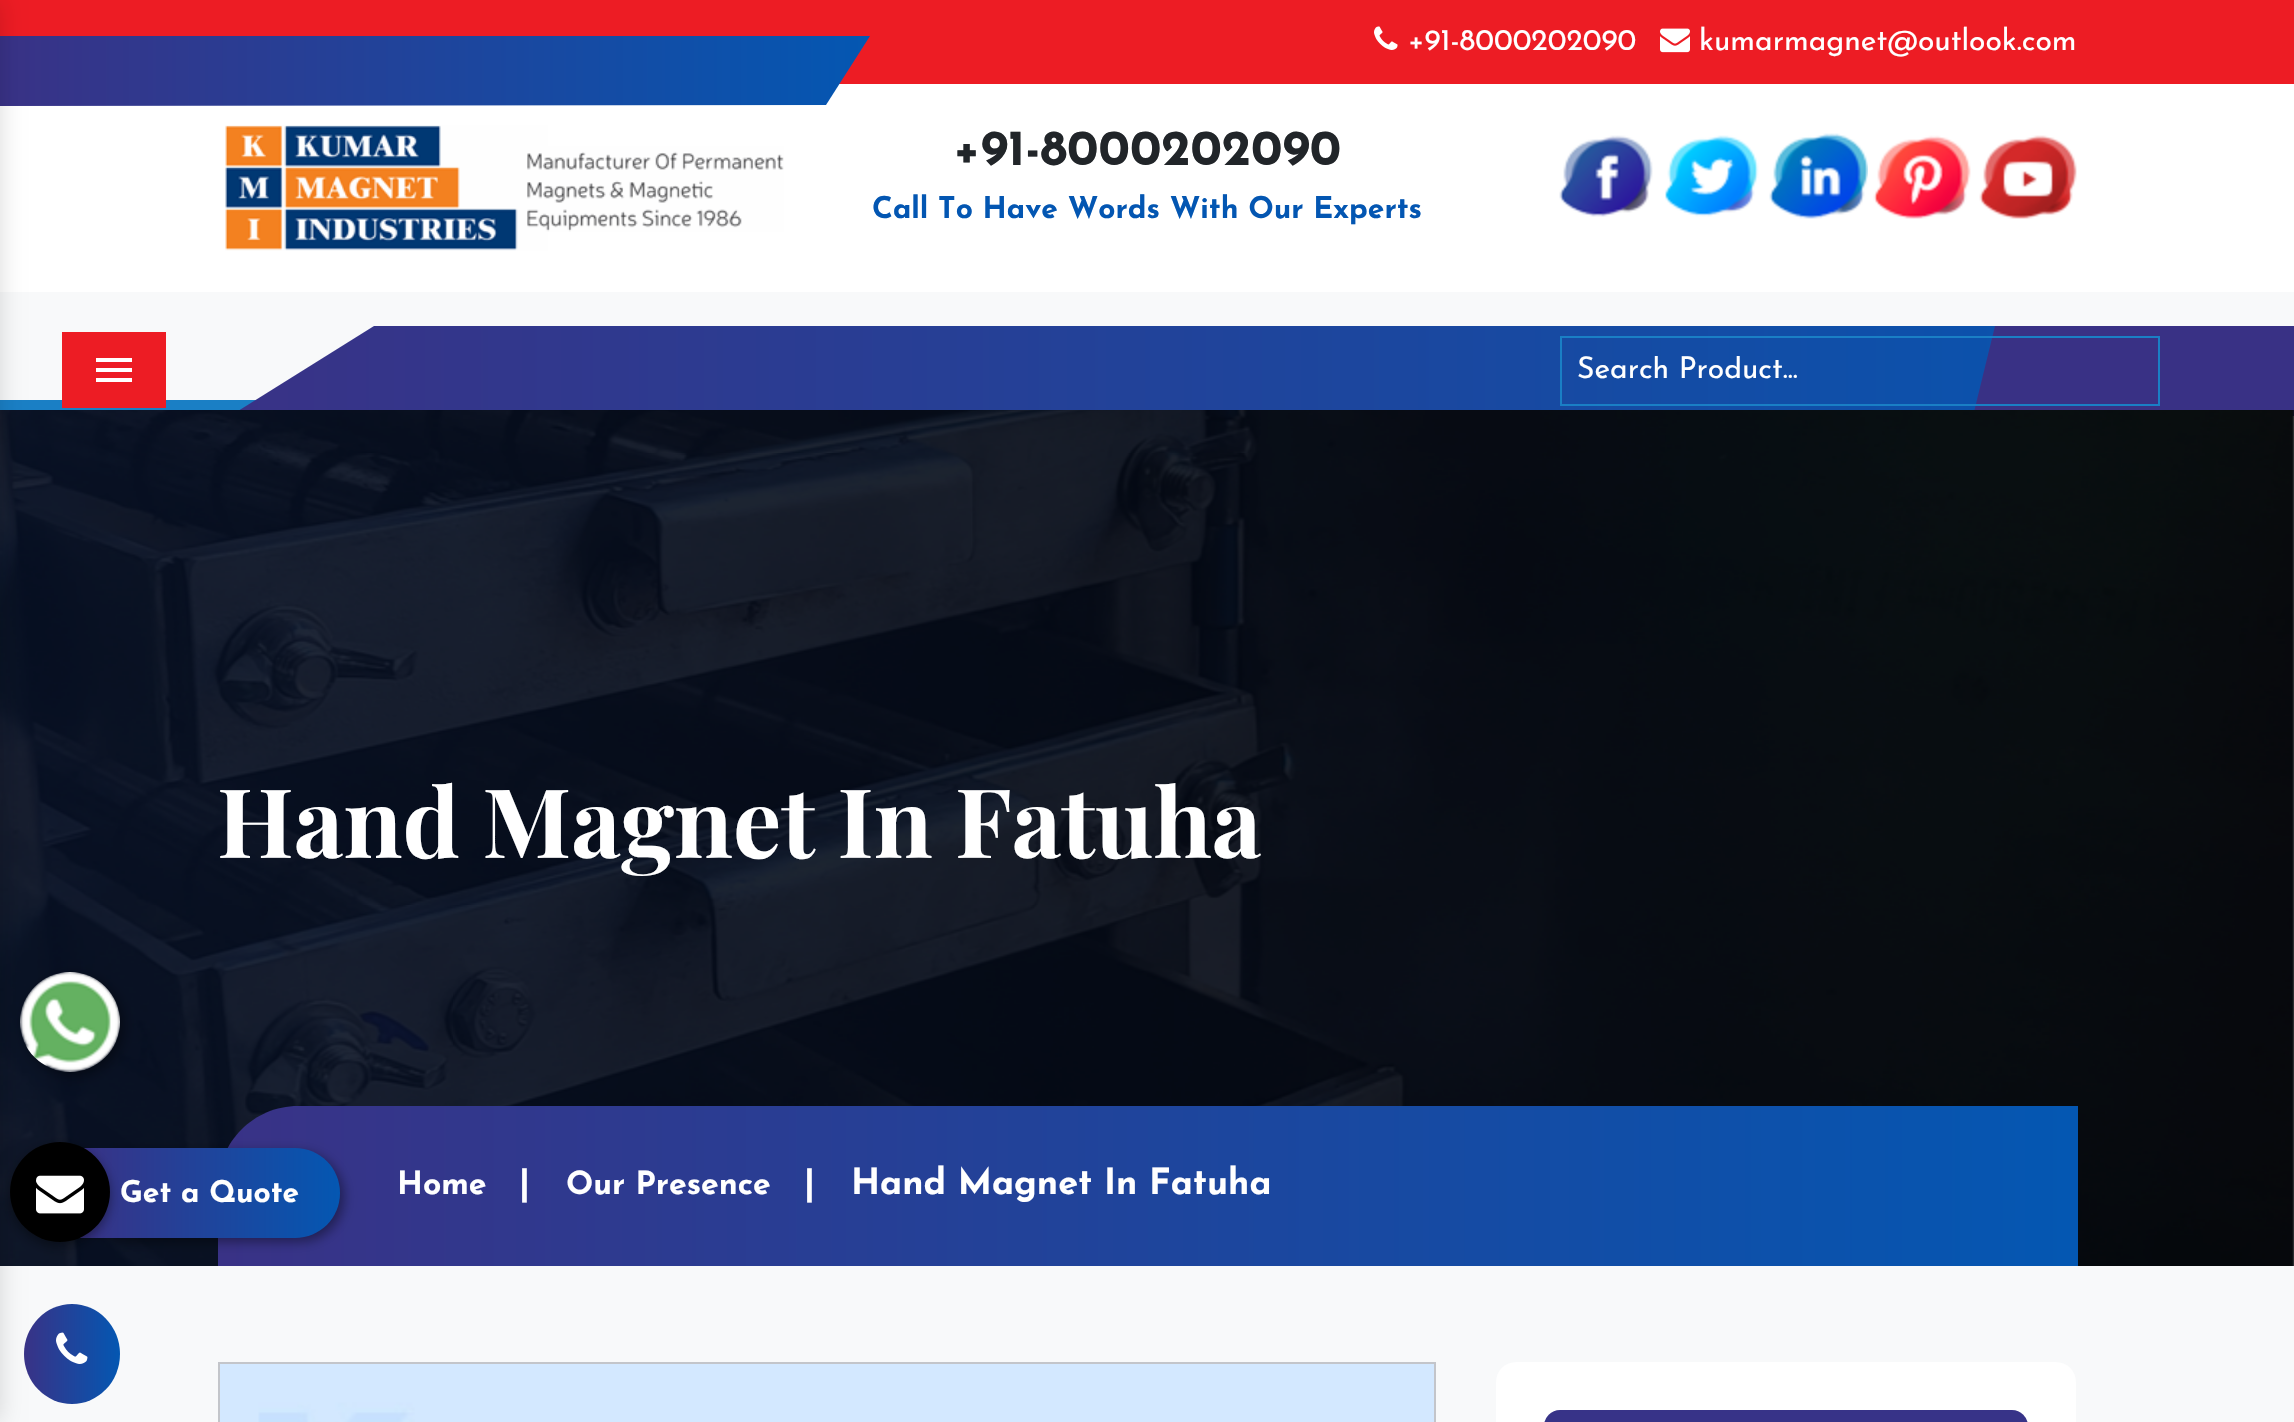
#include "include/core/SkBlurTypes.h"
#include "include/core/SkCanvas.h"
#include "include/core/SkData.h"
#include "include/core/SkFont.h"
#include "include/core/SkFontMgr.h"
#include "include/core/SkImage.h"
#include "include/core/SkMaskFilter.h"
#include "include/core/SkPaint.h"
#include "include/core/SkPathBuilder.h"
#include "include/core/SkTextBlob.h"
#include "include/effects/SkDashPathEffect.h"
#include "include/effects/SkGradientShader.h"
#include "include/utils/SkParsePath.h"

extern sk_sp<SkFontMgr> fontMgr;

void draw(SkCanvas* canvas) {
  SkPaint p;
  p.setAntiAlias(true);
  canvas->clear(SK_ColorWHITE);
  p.setColor(SkColorSetRGB(237, 28, 36));
  canvas->drawRect(SkRect::MakeLTRB(0, 0, 2294, 84), p);
  {
    const SkColor colors[] = {SkColorSetRGB(57, 50, 134), SkColorSetRGB(4, 87, 178)};
    const float stops[] = {0, 1};
    const SkPoint ends[] = {{0, 71}, {870, 71}};
    p.setShader(SkGradientShader::MakeLinear(ends, colors, stops, 2, SkTileMode::kClamp));
    p.setAlpha(255);
  }
  canvas->drawPath(SkPathBuilder().moveTo(0, 36).lineTo(0, 106).lineTo(826, 105).lineTo(870, 36).close().detach(), p);
  p.setShader(nullptr);
  p.setColor(SkColorSetRGB(248, 249, 250));
  canvas->drawRect(SkRect::MakeLTRB(0, 292, 2294, 400), p);
  p.setColor(SkColorSetRGB(26, 127, 197));
  canvas->drawRect(SkRect::MakeLTRB(0, 400, 256, 410), p);
  {
    const SkColor colors[] = {SkColorSetRGB(57, 50, 134), SkColorSetRGB(4, 87, 178)};
    const float stops[] = {0, 1};
    const SkPoint ends[] = {{230, 371}, {2294, 371}};
    p.setShader(SkGradientShader::MakeLinear(ends, colors, stops, 2, SkTileMode::kClamp));
    p.setAlpha(255);
  }
  canvas->drawPath(SkPathBuilder().moveTo(230, 416).lineTo(374, 326).lineTo(2294, 326).lineTo(2294, 416).close().detach(), p);
  p.setShader(nullptr);
  p.setColor(SkColorSetRGB(57, 49, 133));
  canvas->drawPath(SkPathBuilder().moveTo(2294, 416).lineTo(2294, 326).lineTo(1995, 326).lineTo(1973, 416).close().detach(), p);
  canvas->drawImageRect(SkImages::DeferredFromEncodedData(SkData::MakeFromFileName("images/10.png")), SkRect::MakeLTRB(0, 410, 2294, 1266), SkSamplingOptions());
  p.setColor(SkColorSetARGB(128, 0, 0, 0));
  canvas->drawRect(SkRect::MakeLTRB(0, 410, 2294, 1266), p);
  canvas->save();
  canvas->clipPath(SkPathBuilder(SkPathFillType::kEvenOdd).moveTo(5, 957).lineTo(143, 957).lineTo(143, 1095).lineTo(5, 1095).close().moveTo(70, 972).cubicTo(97.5f, 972, 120, 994.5f, 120, 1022).cubicTo(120, 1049.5f, 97.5f, 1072, 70, 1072).cubicTo(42.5f, 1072, 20, 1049.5f, 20, 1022).cubicTo(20, 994.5f, 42.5f, 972, 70, 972).close().detach(), true);
  p.setColor(SkColorSetARGB(102, 0, 0, 0));
  p.setMaskFilter(SkMaskFilter::MakeBlur(kNormal_SkBlurStyle, 6));
  canvas->drawRoundRect(SkRect::MakeLTRB(24, 976, 124, 1076), 50, 50, p);
  p.setMaskFilter(nullptr);
  canvas->restore();
  canvas->drawImageRect(SkImages::DeferredFromEncodedData(SkData::MakeFromFileName("images/9.png")), SkRect::MakeLTRB(20, 972, 120, 1072), SkSamplingOptions());
  {
    const SkColor colors[] = {SkColorSetRGB(57, 50, 134), SkColorSetRGB(4, 87, 178)};
    const float stops[] = {0, 1};
    const SkPoint ends[] = {{218, 1186}, {2078, 1186}};
    p.setShader(SkGradientShader::MakeLinear(ends, colors, stops, 2, SkTileMode::kClamp));
    p.setAlpha(255);
  }
  canvas->drawPath(SkPathBuilder().moveTo(298, 1106).lineTo(2078, 1106).lineTo(2078, 1266).lineTo(218, 1266).lineTo(218, 1186).cubicTo(218, 1142, 254, 1106, 298, 1106).close().detach(), p);
  p.setShader(nullptr);
  p.setColor(SkColorSetARGB(102, 0, 0, 0));
  p.setMaskFilter(SkMaskFilter::MakeBlur(kNormal_SkBlurStyle, 6));
  canvas->drawRoundRect(SkRect::MakeLTRB(84, 1152, 344, 1242), 45, 45, p);
  p.setMaskFilter(nullptr);
  {
    const SkColor colors[] = {SkColorSetRGB(57, 50, 134), SkColorSetRGB(4, 87, 178)};
    const float stops[] = {0, 1};
    const SkPoint ends[] = {{80, 1193}, {340, 1193}};
    p.setShader(SkGradientShader::MakeLinear(ends, colors, stops, 2, SkTileMode::kClamp));
    p.setAlpha(255);
  }
  canvas->drawPath(SkPathBuilder().moveTo(80, 1148).lineTo(295, 1148).cubicTo(320, 1148, 340, 1168, 340, 1193).cubicTo(340, 1218, 320, 1238, 295, 1238).lineTo(80, 1238).close().detach(), p);
  p.setShader(nullptr);
  p.setColor(SkColorSetARGB(102, 0, 0, 0));
  p.setMaskFilter(SkMaskFilter::MakeBlur(kNormal_SkBlurStyle, 6));
  canvas->drawRoundRect(SkRect::MakeLTRB(10, 1146, 110, 1246), 50, 50, p);
  p.setMaskFilter(nullptr);
  p.setColor(SK_ColorBLACK);
  canvas->drawCircle(60, 1192, 50, p);
  canvas->drawImageRect(SkImages::DeferredFromEncodedData(SkData::MakeFromFileName("images/11.png")), SkRect::MakeLTRB(36, 1175, 84, 1214), SkSamplingOptions());
  p.setColor(SkColorSetRGB(248, 249, 250));
  canvas->drawRect(SkRect::MakeLTRB(0, 1266, 2294, 1422), p);
  p.setColor(SkColorSetARGB(36, 0, 0, 0));
  p.setMaskFilter(SkMaskFilter::MakeBlur(kNormal_SkBlurStyle, 12));
  canvas->drawRect(SkRect::MakeLTRB(-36, 0, 0, 1422), p);
  p.setMaskFilter(nullptr);
  canvas->drawImageRect(SkImages::DeferredFromEncodedData(SkData::MakeFromFileName("images/1.png")), SkRect::MakeLTRB(1374, 26, 1398, 50), SkSamplingOptions());
  canvas->drawImageRect(SkImages::DeferredFromEncodedData(SkData::MakeFromFileName("images/2.png")), SkRect::MakeLTRB(1660, 28, 1690, 53), SkSamplingOptions());
  canvas->drawImageRect(SkImages::DeferredFromEncodedData(SkData::MakeFromFileName("images/3.png")), SkRect::MakeLTRB(225, 125, 784, 251), SkSamplingOptions());
  canvas->drawImageRect(SkImages::DeferredFromEncodedData(SkData::MakeFromFileName("images/4.png")), SkRect::MakeLTRB(1559, 135, 1653, 217), SkSamplingOptions());
  canvas->drawImageRect(SkImages::DeferredFromEncodedData(SkData::MakeFromFileName("images/5.png")), SkRect::MakeLTRB(1665, 135, 1759, 217), SkSamplingOptions());
  canvas->drawImageRect(SkImages::DeferredFromEncodedData(SkData::MakeFromFileName("images/6.png")), SkRect::MakeLTRB(1769, 133, 1868, 219), SkSamplingOptions());
  canvas->drawImageRect(SkImages::DeferredFromEncodedData(SkData::MakeFromFileName("images/7.png")), SkRect::MakeLTRB(1873, 135, 1971, 219), SkSamplingOptions());
  canvas->drawImageRect(SkImages::DeferredFromEncodedData(SkData::MakeFromFileName("images/8.png")), SkRect::MakeLTRB(1979, 135, 2077, 219), SkSamplingOptions());
  p.setColor(SkColorSetRGB(237, 28, 36));
  canvas->drawRect(SkRect::MakeLTRB(62, 332, 166, 408), p);
  p.setColor(SK_ColorWHITE);
  canvas->drawPath(SkPathBuilder().moveTo(96, 382).lineTo(132, 382).lineTo(132, 378).lineTo(96, 378).close().moveTo(96, 372).lineTo(132, 372).lineTo(132, 368).lineTo(96, 368).close().moveTo(96, 358).lineTo(96, 362).lineTo(132, 362).lineTo(132, 358).close().detach(), p);
  p.setStyle(SkPaint::kStroke_Style);
  p.setStrokeWidth(2);
  p.setColor(SkColorSetRGB(26, 127, 197));
  canvas->drawRect(SkRect::MakeLTRB(1561, 337, 2159, 405), p);
  p.setColor(SkColorSetRGB(195, 197, 202));
  canvas->drawRect(SkRect::MakeLTRB(219, 1363, 1435, 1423), p);
  canvas->drawImageRect(SkImages::DeferredFromEncodedData(SkData::MakeFromFileName("images/12.png")), SkRect::MakeLTRB(220, 1364, 1434, 1422), SkSamplingOptions());
  p.setStyle(SkPaint::kFill_Style);
  p.setColor(SK_ColorWHITE);
  canvas->drawRoundRect(SkRect::MakeLTRB(1496, 1362, 2076, 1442), 20, 20, p);
  p.setColor(SkColorSetRGB(55, 51, 136));
  canvas->drawRoundRect(SkRect::MakeLTRB(1544, 1410, 2028, 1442), 20, 20, p);
  {
    const SkColor colors[] = {SkColorSetRGB(57, 50, 134), SkColorSetRGB(4, 87, 178)};
    const float stops[] = {0, 1};
    const SkPoint ends[] = {{24, 1354}, {120, 1354}};
    p.setShader(SkGradientShader::MakeLinear(ends, colors, stops, 2, SkTileMode::kClamp));
    p.setAlpha(255);
  }
  canvas->drawOval(SkRect::MakeLTRB(24, 1304, 120, 1404), p);
  canvas->drawImageRect(SkImages::DeferredFromEncodedData(SkData::MakeFromFileName("images/13.png")), SkRect::MakeLTRB(56, 1332, 88, 1364), SkSamplingOptions());
  SkFont font1(fontMgr->matchFamilyStyle("Josefin Sans", SkFontStyle::Normal()), 30);
  font1.setSubpixel(true);
  p.setShader(nullptr);
  p.setColor(SK_ColorWHITE);
  canvas->drawString("+91-8000202090", 1408, 50, font1, p);
  canvas->drawString("kumarmagnet@outlook.com", 1699, 50, font1, p);
  SkFont font2(fontMgr->matchFamilyStyle("Josefin Sans", SkFontStyle::Bold()), 50);
  font2.setSubpixel(true);
  p.setColor(SkColorSetRGB(33, 37, 41));
  canvas->drawString("+91-8000202090", 953, 165, font2, p);
  SkFont font3(fontMgr->matchFamilyStyle("Josefin Sans", SkFontStyle::Bold()), 30);
  font3.setSubpixel(true);
  p.setColor(SkColorSetRGB(3, 86, 178));
  canvas->drawString("Call To Have Words With Our Experts", 872, 218, font3, p);
  canvas->save();
  canvas->clipRect(SkRect::MakeLTRB(1578, 356, 2154, 386));
  p.setColor(SK_ColorWHITE);
  canvas->drawString("Search Product...", 1577, 378, font1, p);
  canvas->restore();
  SkFont font4(fontMgr->matchFamilyStyle("Playfair Display", SkFontStyle::Bold()), 96);
  font4.setSubpixel(true);
  canvas->drawString("Hand Magnet In Fatuha", 217, 858, font4, p);
  SkFont font5(fontMgr->matchFamilyStyle("Josefin Sans", SkFontStyle::Bold()), 32);
  font5.setSubpixel(true);
  canvas->drawString("Home", 397, 1194, font5, p);
  SkFont font6(fontMgr->matchFamilyStyle("Josefin Sans", SkFontStyle::Bold()), 36);
  font6.setSubpixel(true);
  canvas->drawString("|", 519, 1194, font6, p);
  canvas->drawString("Our Presence", 566, 1194, font5, p);
  canvas->drawString("|", 804, 1194, font6, p);
  canvas->drawString("Hand Magnet In Fatuha", 851, 1194, font6, p);
  canvas->drawString("Get a Quote", 120, 1202, font3, p);
}
